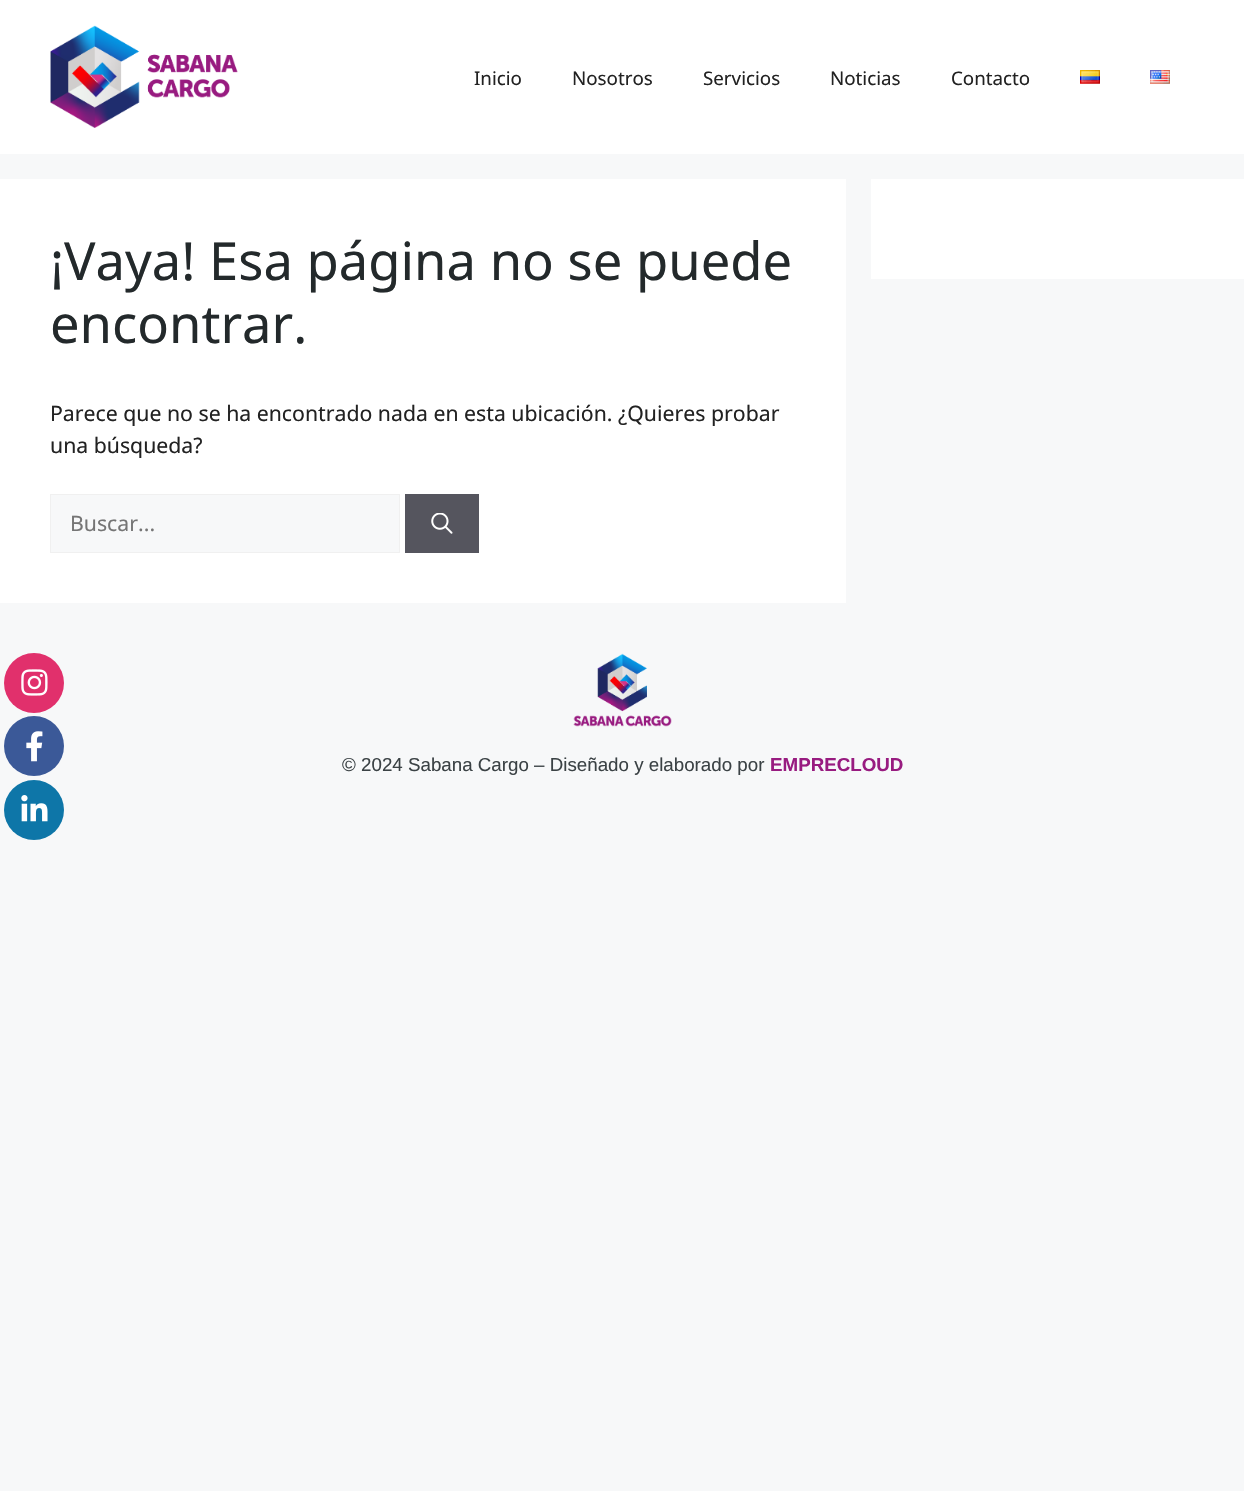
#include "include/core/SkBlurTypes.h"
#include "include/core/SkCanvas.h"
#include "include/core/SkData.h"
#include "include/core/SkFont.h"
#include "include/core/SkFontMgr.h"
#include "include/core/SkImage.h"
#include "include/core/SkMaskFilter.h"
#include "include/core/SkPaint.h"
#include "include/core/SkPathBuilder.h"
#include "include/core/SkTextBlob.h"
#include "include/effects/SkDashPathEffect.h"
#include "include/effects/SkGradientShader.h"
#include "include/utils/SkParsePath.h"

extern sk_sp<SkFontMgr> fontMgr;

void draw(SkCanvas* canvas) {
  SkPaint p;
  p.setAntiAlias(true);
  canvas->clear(SkColorSetRGB(247, 248, 249));
  p.setColor(SK_ColorWHITE);
  canvas->drawRect(SkRect::MakeLTRB(0, 0, 1244, 154), p);
  canvas->drawImageRect(SkImages::DeferredFromEncodedData(SkData::MakeFromFileName("images/1.png")), SkRect::MakeLTRB(50, 25, 238, 128), SkSamplingOptions());
  canvas->drawImageRect(SkImages::DeferredFromEncodedData(SkData::MakeFromFileName("images/2.png")), SkRect::MakeLTRB(1080, 70, 1100, 84), SkSamplingOptions());
  canvas->drawImageRect(SkImages::DeferredFromEncodedData(SkData::MakeFromFileName("images/3.png")), SkRect::MakeLTRB(1150, 70, 1170, 84), SkSamplingOptions());
  canvas->drawRect(SkRect::MakeLTRB(871, 179, 1244, 279), p);
  canvas->drawRect(SkRect::MakeLTRB(0, 179, 846, 603), p);
  p.setColor(SkColorSetRGB(247, 248, 249));
  canvas->drawRect(SkRect::MakeLTRB(50.5f, 494.5f, 399.5f, 552.5f), p);
  p.setStyle(SkPaint::kStroke_Style);
  p.setStrokeWidth(1);
  p.setColor(SkColorSetRGB(240, 240, 240));
  canvas->drawRect(SkRect::MakeLTRB(50.5f, 494.5f, 399.5f, 552.5f), p);
  p.setStyle(SkPaint::kFill_Style);
  p.setColor(SkColorSetRGB(85, 85, 94));
  canvas->drawRect(SkRect::MakeLTRB(405, 494, 479, 553), p);
  canvas->drawImageRect(SkImages::DeferredFromEncodedData(SkData::MakeFromFileName("images/4.png")), SkRect::MakeLTRB(431, 513, 453, 534), SkSamplingOptions());
  p.setColor(SkColorSetRGB(225, 48, 108));
  canvas->drawCircle(34, 683, 30, p);
  canvas->drawImageRect(SkImages::DeferredFromEncodedData(SkData::MakeFromFileName("images/5.png")), SkRect::MakeLTRB(21, 669, 48, 696), SkSamplingOptions());
  p.setColor(SkColorSetRGB(59, 89, 152));
  canvas->drawCircle(34, 746, 30, p);
  canvas->drawImageRect(SkImages::DeferredFromEncodedData(SkData::MakeFromFileName("images/6.png")), SkRect::MakeLTRB(26, 731, 43, 762), SkSamplingOptions());
  p.setColor(SkColorSetRGB(14, 118, 168));
  canvas->drawCircle(34, 810, 30, p);
  canvas->drawImageRect(SkImages::DeferredFromEncodedData(SkData::MakeFromFileName("images/7.png")), SkRect::MakeLTRB(21, 795, 48, 822), SkSamplingOptions());
  canvas->drawImageRect(SkImages::DeferredFromEncodedData(SkData::MakeFromFileName("images/8.png")), SkRect::MakeLTRB(573, 653, 672, 727), SkSamplingOptions());
  SkFont font1(fontMgr->matchFamilyStyle("Noto Sans", SkFontStyle::Normal()), 18.75f);
  font1.setSubpixel(true);
  p.setColor(SkColorSetRGB(34, 34, 34));
  canvas->drawString("Inicio", 474, 85, font1, p);
  canvas->drawString("Nosotros", 572, 85, font1, p);
  canvas->drawString("Servicios", 703, 85, font1, p);
  canvas->drawString("Noticias", 830, 85, font1, p);
  canvas->drawString("Contacto", 951, 85, font1, p);
  SkFont font2(fontMgr->matchFamilyStyle("Noto Sans", SkFontStyle::Normal()), 52.5f);
  font2.setSubpixel(true);
  p.setColor(SkColorSetRGB(35, 41, 43));
  canvas->drawString("¡Vaya! Esa página no se puede", 50, 280, font2, p);
  canvas->drawString("encontrar.", 50, 343, font2, p);
  SkFont font3(fontMgr->matchFamilyStyle("Noto Sans", SkFontStyle::Normal()), 21.25f);
  font3.setSubpixel(true);
  p.setColor(SkColorSetRGB(34, 34, 34));
  canvas->drawString("Parece que no se ha encontrado nada en esta ubicación. ¿Quieres probar", 50, 421, font3, p);
  canvas->drawString("una búsqueda?", 50, 453, font3, p);
  p.setColor(SkColorSetRGB(117, 117, 117));
  canvas->drawString("Buscar...", 70, 531, font3, p);
  SkFont font4(fontMgr->matchFamilyStyle("Liberation Sans", SkFontStyle::Normal()), 18.75f);
  font4.setSubpixel(true);
  p.setColor(SkColorSetRGB(59, 66, 69));
  canvas->drawString("© 2024 Sabana Cargo – Diseñado y elaborado por", 342, 771, font4, p);
  SkFont font5(fontMgr->matchFamilyStyle("Liberation Sans", SkFontStyle::Bold()), 18.75f);
  font5.setSubpixel(true);
  p.setColor(SkColorSetRGB(152, 27, 128));
  canvas->drawString("EMPRECLOUD", 770, 771, font5, p);
}
